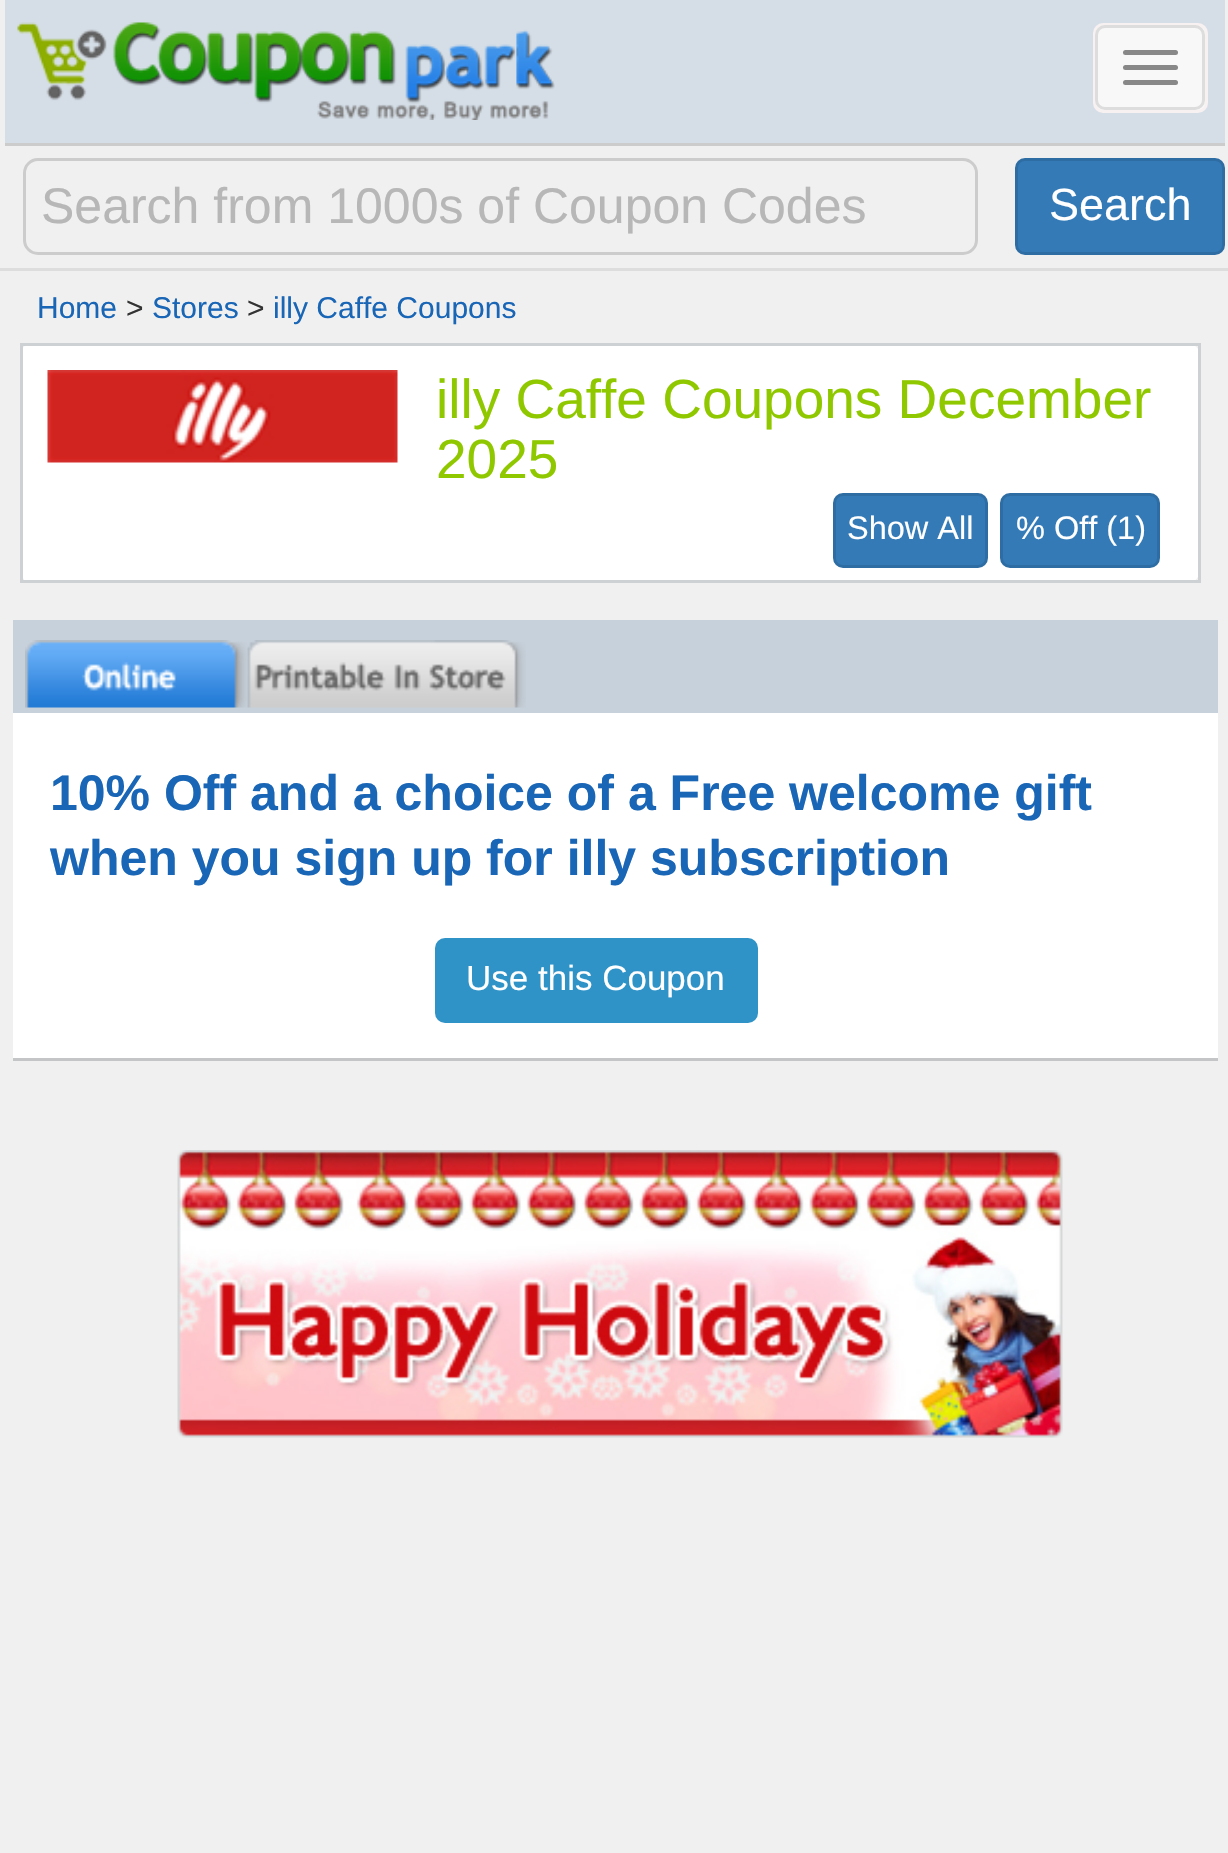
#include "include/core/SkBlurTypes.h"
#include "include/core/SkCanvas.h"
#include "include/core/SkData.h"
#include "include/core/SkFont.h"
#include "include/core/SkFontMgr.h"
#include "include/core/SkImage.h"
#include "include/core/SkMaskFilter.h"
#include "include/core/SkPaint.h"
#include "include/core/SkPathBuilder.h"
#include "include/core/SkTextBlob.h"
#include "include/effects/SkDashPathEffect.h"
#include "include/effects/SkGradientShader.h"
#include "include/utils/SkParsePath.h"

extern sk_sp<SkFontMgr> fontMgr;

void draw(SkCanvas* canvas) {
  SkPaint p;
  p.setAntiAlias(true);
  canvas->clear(SkColorSetRGB(240, 240, 240));
  p.setColor(SkColorSetRGB(213, 222, 231));
  canvas->drawRect(SkRect::MakeLTRB(5, 0, 1225, 143), p);
  p.setColor(SkColorSetRGB(204, 204, 204));
  canvas->drawRect(SkRect::MakeLTRB(5, 143, 1225, 146), p);
  canvas->drawImageRect(SkImages::DeferredFromEncodedData(SkData::MakeFromFileName("images/1.png")), SkRect::MakeLTRB(17, 22, 555, 120), SkSamplingOptions());
  p.setColor(SkColorSetRGB(248, 248, 248));
  canvas->drawRoundRect(SkRect::MakeLTRB(1094.5f, 24.5f, 1206.5f, 111.5f), 8.5f, 8.5f, p);
  p.setStyle(SkPaint::kStroke_Style);
  p.setStrokeWidth(3);
  p.setColor(SkColorSetRGB(247, 241, 241));
  canvas->drawRoundRect(SkRect::MakeLTRB(1094.5f, 24.5f, 1206.5f, 111.5f), 8.5f, 8.5f, p);
  p.setColor(SkColorSetRGB(221, 221, 221));
  canvas->drawRoundRect(SkRect::MakeLTRB(1096.5f, 26.5f, 1203.5f, 108.5f), 8.5f, 8.5f, p);
  p.setStyle(SkPaint::kFill_Style);
  p.setColor(SkColorSetRGB(136, 136, 136));
  canvas->drawRoundRect(SkRect::MakeLTRB(1123, 50, 1178, 55), 2.5f, 2.5f, p);
  canvas->drawRoundRect(SkRect::MakeLTRB(1123, 65, 1178, 70), 2.5f, 2.5f, p);
  canvas->drawRoundRect(SkRect::MakeLTRB(1123, 80, 1178, 85), 2.5f, 2.5f, p);
  p.setStyle(SkPaint::kStroke_Style);
  p.setColor(SkColorSetRGB(204, 204, 204));
  canvas->drawRoundRect(SkRect::MakeLTRB(24.5f, 159.5f, 976.5f, 253.5f), 13.5f, 13.5f, p);
  p.setStyle(SkPaint::kFill_Style);
  p.setColor(SkColorSetRGB(51, 122, 183));
  canvas->drawRoundRect(SkRect::MakeLTRB(1016.5f, 159.5f, 1223.5f, 253.5f), 8.5f, 8.5f, p);
  p.setStyle(SkPaint::kStroke_Style);
  p.setColor(SkColorSetRGB(46, 109, 164));
  canvas->drawRoundRect(SkRect::MakeLTRB(1016.5f, 159.5f, 1223.5f, 253.5f), 8.5f, 8.5f, p);
  p.setStyle(SkPaint::kFill_Style);
  p.setColor(SkColorSetRGB(221, 221, 221));
  canvas->drawRect(SkRect::MakeLTRB(0, 268, 1228, 271), p);
  p.setColor(SK_ColorWHITE);
  canvas->drawRoundRect(SkRect::MakeLTRB(20, 343, 1200, 583), 13, 13, p);
  p.setColor(SkColorSetRGB(205, 209, 212));
  canvas->drawRect(SkRect::MakeLTRB(20, 343, 1200, 346), p);
  canvas->drawRect(SkRect::MakeLTRB(1198, 343, 1201, 583), p);
  canvas->drawRect(SkRect::MakeLTRB(20, 580, 1200, 583), p);
  canvas->drawRect(SkRect::MakeLTRB(20, 343, 23, 583), p);
  canvas->drawImageRect(SkImages::DeferredFromEncodedData(SkData::MakeFromFileName("images/2.png")), SkRect::MakeLTRB(47, 370, 398, 463), SkSamplingOptions());
  p.setColor(SkColorSetRGB(51, 122, 183));
  canvas->drawRoundRect(SkRect::MakeLTRB(834.5f, 494.5f, 986.5f, 566.5f), 8.5f, 8.5f, p);
  p.setStyle(SkPaint::kStroke_Style);
  p.setColor(SkColorSetRGB(46, 109, 164));
  canvas->drawRoundRect(SkRect::MakeLTRB(834.5f, 494.5f, 986.5f, 566.5f), 8.5f, 8.5f, p);
  p.setStyle(SkPaint::kFill_Style);
  p.setColor(SkColorSetRGB(51, 122, 183));
  canvas->drawRoundRect(SkRect::MakeLTRB(1001.5f, 494.5f, 1158.5f, 566.5f), 8.5f, 8.5f, p);
  p.setStyle(SkPaint::kStroke_Style);
  p.setColor(SkColorSetRGB(46, 109, 164));
  canvas->drawRoundRect(SkRect::MakeLTRB(1001.5f, 494.5f, 1158.5f, 566.5f), 8.5f, 8.5f, p);
  p.setStyle(SkPaint::kFill_Style);
  p.setColor(SkColorSetRGB(199, 209, 219));
  canvas->drawRect(SkRect::MakeLTRB(13, 620, 1218, 713), p);
  canvas->drawImageRect(SkImages::DeferredFromEncodedData(SkData::MakeFromFileName("images/3.png")), SkRect::MakeLTRB(25, 640, 247, 708), SkSamplingOptions());
  canvas->drawImageRect(SkImages::DeferredFromEncodedData(SkData::MakeFromFileName("images/4.png")), SkRect::MakeLTRB(247, 640, 526, 708), SkSamplingOptions());
  p.setColor(SK_ColorWHITE);
  canvas->drawRect(SkRect::MakeLTRB(13, 713, 1218, 1058), p);
  p.setColor(SkColorSetRGB(196, 197, 198));
  canvas->drawRect(SkRect::MakeLTRB(13, 1058, 1218, 1061), p);
  p.setColor(SkColorSetRGB(48, 147, 199));
  canvas->drawRoundRect(SkRect::MakeLTRB(435, 938, 758, 1023), 10, 10, p);
  canvas->drawImageRect(SkImages::DeferredFromEncodedData(SkData::MakeFromFileName("images/5.png")), SkRect::MakeLTRB(177, 1150, 1063, 1438), SkSamplingOptions());
  SkFont font1(fontMgr->matchFamilyStyle("Liberation Sans", SkFontStyle::Normal()), 50);
  font1.setSubpixel(true);
  p.setColor(SkColorSetRGB(183, 183, 183));
  canvas->drawString("Search from 1000s of Coupon Codes", 41, 223, font1, p);
  SkFont font2(fontMgr->matchFamilyStyle("Liberation Sans", SkFontStyle::Normal()), 45);
  font2.setSubpixel(true);
  p.setColor(SK_ColorWHITE);
  canvas->drawString("Search", 1049, 220, font2, p);
  SkFont font3(fontMgr->matchFamilyStyle("Liberation Sans", SkFontStyle::Normal()), 30);
  font3.setSubpixel(true);
  p.setColor(SkColorSetRGB(25, 101, 182));
  canvas->drawString("Home", 37, 318, font3, p);
  p.setColor(SkColorSetRGB(51, 51, 51));
  canvas->drawString(">", 126, 318, font3, p);
  p.setColor(SkColorSetRGB(25, 101, 182));
  canvas->drawString("Stores", 152, 318, font3, p);
  p.setColor(SkColorSetRGB(51, 51, 51));
  canvas->drawString(">", 247, 318, font3, p);
  p.setColor(SkColorSetRGB(25, 101, 182));
  canvas->drawString("illy Caffe Coupons", 273, 318, font3, p);
  SkFont font4(fontMgr->matchFamilyStyle("Liberation Sans", SkFontStyle::Normal()), 55);
  font4.setSubpixel(true);
  p.setColor(SkColorSetRGB(144, 200, 0));
  canvas->drawString("illy Caffe Coupons December", 436, 418, font4, p);
  canvas->drawString("2025", 436, 478, font4, p);
  SkFont font5(fontMgr->matchFamilyStyle("Liberation Sans", SkFontStyle::Normal()), 32.5f);
  font5.setSubpixel(true);
  p.setColor(SK_ColorWHITE);
  canvas->drawString("Show All", 847, 539, font5, p);
  canvas->drawString("% Off (1)", 1016, 539, font5, p);
  SkFont font6(fontMgr->matchFamilyStyle("Liberation Sans", SkFontStyle::Bold()), 50);
  font6.setSubpixel(true);
  p.setColor(SkColorSetRGB(25, 101, 182));
  canvas->drawString("10% Off and a choice of a Free welcome gift", 50, 810, font6, p);
  canvas->drawString("when you sign up for illy subscription", 50, 875, font6, p);
  SkFont font7(fontMgr->matchFamilyStyle("Liberation Sans", SkFontStyle::Normal()), 35);
  font7.setSubpixel(true);
  p.setColor(SK_ColorWHITE);
  canvas->drawString("Use this Coupon", 466, 990, font7, p);
}
